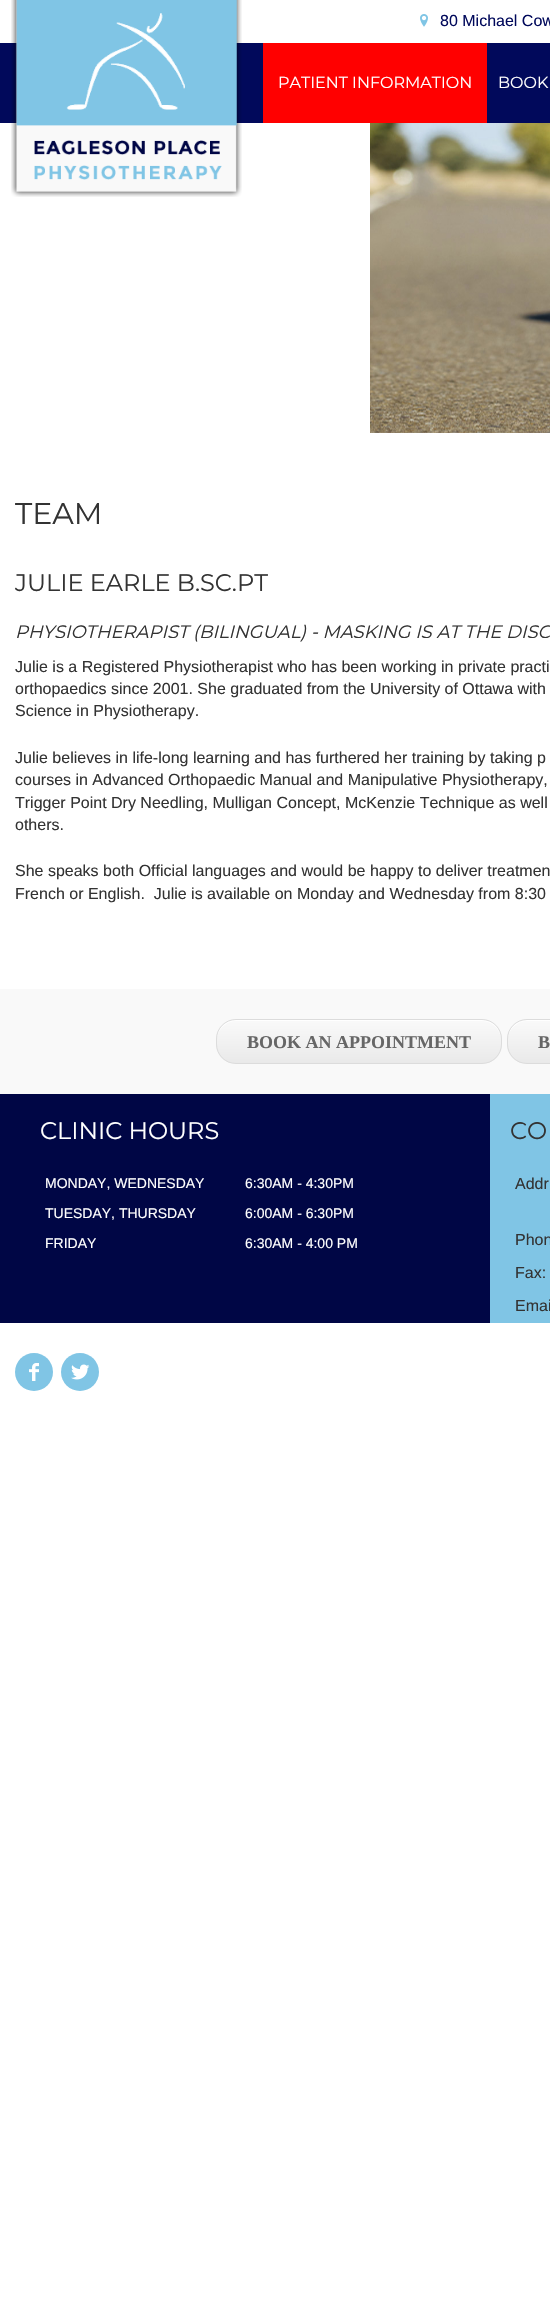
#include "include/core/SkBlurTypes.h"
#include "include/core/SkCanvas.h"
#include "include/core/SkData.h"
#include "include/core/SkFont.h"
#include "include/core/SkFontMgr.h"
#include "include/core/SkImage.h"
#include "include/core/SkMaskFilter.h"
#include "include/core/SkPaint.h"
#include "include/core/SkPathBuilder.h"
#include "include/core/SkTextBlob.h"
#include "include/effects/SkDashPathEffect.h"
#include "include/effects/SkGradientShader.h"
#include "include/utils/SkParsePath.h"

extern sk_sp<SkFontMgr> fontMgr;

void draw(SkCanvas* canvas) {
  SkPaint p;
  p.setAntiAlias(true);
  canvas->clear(SK_ColorWHITE);
  p.setColor(SkColorSetRGB(1, 9, 91));
  canvas->drawRect(SkRect::MakeLTRB(0, 43, 550, 123), p);
  canvas->drawImageRect(SkImages::DeferredFromEncodedData(SkData::MakeFromFileName("images/1.png")), SkRect::MakeLTRB(11, 0, 242, 197), SkSamplingOptions());
  canvas->drawImageRect(SkImages::DeferredFromEncodedData(SkData::MakeFromFileName("images/2.png")), SkRect::MakeLTRB(420, 14, 428, 27), SkSamplingOptions());
  p.setColor(SkColorSetRGB(255, 0, 0));
  canvas->drawRect(SkRect::MakeLTRB(263, 43, 487, 123), p);
  canvas->drawImageRect(SkImages::DeferredFromEncodedData(SkData::MakeFromFileName("images/3.png")), SkRect::MakeLTRB(370, 123, 550, 433), SkSamplingOptions());
  p.setColor(SkColorSetRGB(249, 249, 249));
  canvas->drawRect(SkRect::MakeLTRB(0, 989, 550, 1094), p);
  canvas->save();
  canvas->clipPath(SkPathBuilder().moveTo(236, 1019).lineTo(482, 1019).cubicTo(493, 1019, 502, 1028, 502, 1039).lineTo(502, 1044).cubicTo(502, 1055, 493, 1064, 482, 1064).lineTo(236, 1064).cubicTo(225, 1064, 216, 1055, 216, 1044).lineTo(216, 1039).cubicTo(216, 1028, 225, 1019, 236, 1019).close().detach(), true);
  {
    const SkColor colors[] = {SkColorSetRGB(249, 249, 249), SkColorSetRGB(233, 233, 233)};
    const float stops[] = {0.05f, 1};
    const SkPoint ends[] = {{217, 1020}, {217, 1063}};
    p.setShader(SkGradientShader::MakeLinear(ends, colors, stops, 2, SkTileMode::kClamp));
    p.setAlpha(255);
  }
  canvas->drawRect(SkRect::MakeLTRB(216, 1020, 502, 1063), p);
  canvas->restore();
  p.setShader(nullptr);
  p.setColor(SK_ColorWHITE);
  canvas->drawPath(SkPathBuilder().moveTo(236, 1021).lineTo(482, 1021).cubicTo(492, 1021, 501, 1030, 501, 1040).lineTo(501, 1039).cubicTo(501, 1029, 492, 1020, 482, 1020).lineTo(236, 1020).cubicTo(226, 1020, 217, 1029, 217, 1039).lineTo(217, 1040).cubicTo(217, 1030, 226, 1021, 236, 1021).close().detach(), p);
  p.setStyle(SkPaint::kStroke_Style);
  p.setStrokeWidth(1);
  p.setColor(SkColorSetRGB(220, 220, 220));
  canvas->drawRoundRect(SkRect::MakeLTRB(216.5f, 1019.5f, 501.5f, 1063.5f), 19.5f, 19.5f, p);
  canvas->save();
  canvas->clipPath(SkPathBuilder().moveTo(527, 1019).lineTo(744, 1019).cubicTo(755, 1019, 764, 1028, 764, 1039).lineTo(764, 1044).cubicTo(764, 1055, 755, 1064, 744, 1064).lineTo(527, 1064).cubicTo(516, 1064, 507, 1055, 507, 1044).lineTo(507, 1039).cubicTo(507, 1028, 516, 1019, 527, 1019).close().detach(), true);
  p.setStyle(SkPaint::kFill_Style);
  {
    const SkColor colors[] = {SkColorSetRGB(249, 249, 249), SkColorSetRGB(233, 233, 233)};
    const float stops[] = {0.05f, 1};
    const SkPoint ends[] = {{508, 1020}, {508, 1063}};
    p.setShader(SkGradientShader::MakeLinear(ends, colors, stops, 2, SkTileMode::kClamp));
    p.setAlpha(255);
  }
  canvas->drawRect(SkRect::MakeLTRB(507, 1020, 550, 1063), p);
  canvas->restore();
  p.setShader(nullptr);
  p.setColor(SK_ColorWHITE);
  canvas->drawPath(SkPathBuilder().moveTo(527, 1021).lineTo(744, 1021).cubicTo(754, 1021, 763, 1030, 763, 1040).cubicTo(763, 1012, 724, 1020, 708, 1020).lineTo(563, 1020).cubicTo(547, 1020, 508, 1012, 508, 1040).cubicTo(508, 1030, 517, 1021, 527, 1021).close().detach(), p);
  p.setStyle(SkPaint::kStroke_Style);
  p.setColor(SkColorSetRGB(220, 220, 220));
  canvas->drawRoundRect(SkRect::MakeLTRB(507.5f, 1019.5f, 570.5f, 1063.5f), 19.5f, 19.5f, p);
  p.setStyle(SkPaint::kFill_Style);
  p.setColor(SkColorSetRGB(0, 6, 69));
  canvas->drawRect(SkRect::MakeLTRB(0, 1094, 490, 1323), p);
  p.setColor(SkColorSetRGB(128, 197, 229));
  canvas->drawRect(SkRect::MakeLTRB(490, 1094, 550, 1323), p);
  canvas->drawCircle(34, 1372, 19, p);
  canvas->drawImageRect(SkImages::DeferredFromEncodedData(SkData::MakeFromFileName("images/4.png")), SkRect::MakeLTRB(29, 1363, 39, 1381), SkSamplingOptions());
  canvas->drawCircle(80, 1372, 19, p);
  canvas->drawImageRect(SkImages::DeferredFromEncodedData(SkData::MakeFromFileName("images/5.png")), SkRect::MakeLTRB(71, 1364, 90, 1380), SkSamplingOptions());
  SkFont font1(fontMgr->matchFamilyStyle("Liberation Sans", SkFontStyle::Normal()), 16);
  font1.setSubpixel(true);
  p.setColor(SkColorSetRGB(1, 9, 91));
  canvas->drawString("80 Michael Cow", 440, 26, font1, p);
  SkFont font2(fontMgr->matchFamilyStyle("Montserrat", SkFontStyle::Normal()), 16);
  font2.setSubpixel(true);
  p.setColor(SK_ColorWHITE);
  canvas->drawString("PATIENT INFORMATION", 278, 88, font2, p);
  canvas->drawString("BOOK", 498, 88, font2, p);
  SkFont font3(fontMgr->matchFamilyStyle("Montserrat", SkFontStyle::Normal()), 30);
  font3.setSubpixel(true);
  p.setColor(SkColorSetRGB(51, 51, 51));
  canvas->drawString("TEAM", 15, 524, font3, p);
  SkFont font4(fontMgr->matchFamilyStyle("Montserrat", SkFontStyle::Normal()), 24);
  font4.setSubpixel(true);
  canvas->drawString("JULIE EARLE B.SC.PT", 15, 591, font4, p);
  SkFont font5(fontMgr->matchFamilyStyle("Montserrat", SkFontStyle::Italic()), 18);
  font5.setSubpixel(true);
  canvas->drawString("PHYSIOTHERAPIST (BILINGUAL) - MASKING IS AT THE DISC", 15, 638, font5, p);
  canvas->drawString("Julie is a Registered Physiotherapist who has been working in private practi", 15, 672, font1, p);
  canvas->drawString("orthopaedics since 2001. She graduated from the University of Ottawa with", 15, 694, font1, p);
  canvas->drawString("Science in Physiotherapy.", 15, 716, font1, p);
  canvas->drawString("Julie believes in life-long learning and has furthered her training by taking p", 15, 763, font1, p);
  canvas->drawString("courses in Advanced Orthopaedic Manual and Manipulative Physiotherapy,", 15, 785, font1, p);
  canvas->drawString("Trigger Point Dry Needling, Mulligan Concept, McKenzie Technique as well", 15, 808, font1, p);
  canvas->drawString("others.", 15, 830, font1, p);
  canvas->drawString("She speaks both Official languages and would be happy to deliver treatmen", 15, 876, font1, p);
  canvas->drawString("French or English.  Julie is available on Monday and Wednesday from 8:30", 15, 899, font1, p);
  SkFont font6(fontMgr->matchFamilyStyle("Liberation Serif", SkFontStyle::Bold()), 18);
  font6.setSubpixel(true);
  p.setColor(SkColorSetRGB(102, 102, 102));
  canvas->drawString("BOOK AN APPOINTMENT", 247, 1048, font6, p);
  canvas->drawString("B", 538, 1048, font6, p);
  p.setColor(SK_ColorWHITE);
  canvas->drawString("CLINIC HOURS", 40, 1139, font4, p);
  SkFont font7(fontMgr->matchFamilyStyle("Liberation Sans", SkFontStyle::Normal()), 14);
  font7.setSubpixel(true);
  canvas->drawString("MONDAY, WEDNESDAY", 45, 1188, font7, p);
  canvas->drawString("6:30AM - 4:30PM", 245, 1188, font7, p);
  canvas->drawString("TUESDAY, THURSDAY", 45, 1218, font7, p);
  canvas->drawString("6:00AM - 6:30PM", 245, 1218, font7, p);
  canvas->drawString("FRIDAY", 45, 1248, font7, p);
  canvas->drawString("6:30AM - 4:00 PM", 245, 1248, font7, p);
  p.setColor(SkColorSetRGB(51, 51, 51));
  canvas->drawString("CO", 510, 1139, font4, p);
  canvas->drawString("Addr", 515, 1189, font1, p);
  canvas->drawString("Phon", 515, 1245, font1, p);
  canvas->drawString("Fax:", 515, 1278, font1, p);
  canvas->drawString("Emai", 515, 1311, font1, p);
}
